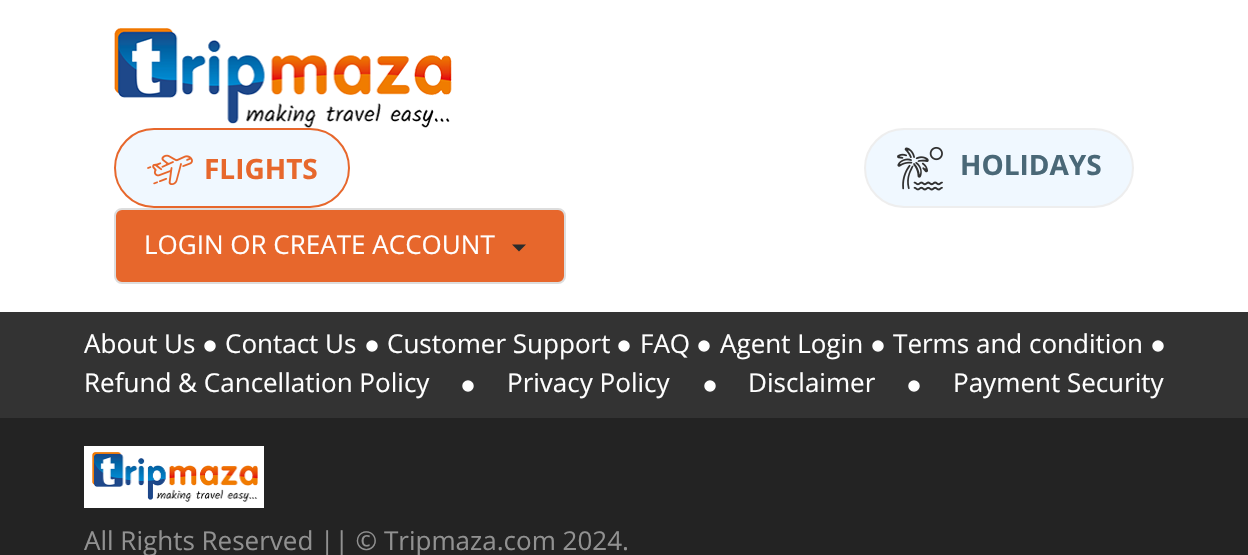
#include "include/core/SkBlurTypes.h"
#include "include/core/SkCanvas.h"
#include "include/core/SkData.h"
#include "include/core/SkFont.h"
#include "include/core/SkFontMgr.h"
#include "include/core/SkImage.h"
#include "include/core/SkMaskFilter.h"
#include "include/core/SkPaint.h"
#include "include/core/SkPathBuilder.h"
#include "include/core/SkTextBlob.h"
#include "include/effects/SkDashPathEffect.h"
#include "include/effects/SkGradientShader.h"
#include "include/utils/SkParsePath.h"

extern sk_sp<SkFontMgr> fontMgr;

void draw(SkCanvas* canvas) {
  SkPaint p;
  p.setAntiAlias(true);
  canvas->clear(SK_ColorWHITE);
  canvas->drawImageRect(SkImages::DeferredFromEncodedData(SkData::MakeFromFileName("images/1.png")), SkRect::MakeLTRB(114, 28, 452, 128), SkSamplingOptions());
  p.setColor(SkColorSetRGB(240, 248, 255));
  canvas->drawRoundRect(SkRect::MakeLTRB(115, 129, 349, 207), 39, 39, p);
  p.setStyle(SkPaint::kStroke_Style);
  p.setStrokeWidth(2);
  p.setColor(SkColorSetRGB(231, 103, 44));
  canvas->drawRoundRect(SkRect::MakeLTRB(115, 129, 349, 207), 39, 39, p);
  canvas->drawImageRect(SkImages::DeferredFromEncodedData(SkData::MakeFromFileName("images/2.png")), SkRect::MakeLTRB(147, 154, 193, 185), SkSamplingOptions());
  p.setStyle(SkPaint::kFill_Style);
  p.setColor(SkColorSetRGB(240, 248, 255));
  canvas->drawRoundRect(SkRect::MakeLTRB(865, 129, 1133, 207), 39, 39, p);
  p.setStyle(SkPaint::kStroke_Style);
  p.setColor(SkColorSetRGB(238, 238, 238));
  canvas->drawRoundRect(SkRect::MakeLTRB(865, 129, 1133, 207), 39, 39, p);
  canvas->drawImageRect(SkImages::DeferredFromEncodedData(SkData::MakeFromFileName("images/3.png")), SkRect::MakeLTRB(897, 146, 943, 191), SkSamplingOptions());
  p.setStyle(SkPaint::kFill_Style);
  p.setColor(SkColorSetRGB(231, 103, 44));
  canvas->drawRoundRect(SkRect::MakeLTRB(115, 209, 565, 283), 7, 7, p);
  p.setStyle(SkPaint::kStroke_Style);
  p.setColor(SkColorSetRGB(221, 221, 221));
  canvas->drawRoundRect(SkRect::MakeLTRB(115, 209, 565, 283), 7, 7, p);
  p.setStyle(SkPaint::kFill_Style);
  p.setColor(SkColorSetRGB(44, 44, 44));
  canvas->drawPath(SkPathBuilder().moveTo(512, 244.5f).lineTo(526, 244.5f).lineTo(519, 251.5f).close().detach(), p);
  p.setColor(SkColorSetRGB(51, 51, 51));
  canvas->drawRect(SkRect::MakeLTRB(0, 312, 1248, 418), p);
  p.setColor(SK_ColorWHITE);
  canvas->drawCircle(210, 346, 5, p);
  p.setStyle(SkPaint::kStroke_Style);
  p.setStrokeWidth(1.5f);
  canvas->drawCircle(210, 346, 5, p);
  p.setStyle(SkPaint::kFill_Style);
  canvas->drawCircle(372, 346, 5, p);
  p.setStyle(SkPaint::kStroke_Style);
  canvas->drawCircle(372, 346, 5, p);
  p.setStyle(SkPaint::kFill_Style);
  canvas->drawCircle(624, 346, 5, p);
  p.setStyle(SkPaint::kStroke_Style);
  canvas->drawCircle(624, 346, 5, p);
  p.setStyle(SkPaint::kFill_Style);
  canvas->drawCircle(704, 346, 5, p);
  p.setStyle(SkPaint::kStroke_Style);
  canvas->drawCircle(704, 346, 5, p);
  p.setStyle(SkPaint::kFill_Style);
  canvas->drawCircle(878, 346, 5, p);
  p.setStyle(SkPaint::kStroke_Style);
  canvas->drawCircle(878, 346, 5, p);
  p.setStyle(SkPaint::kFill_Style);
  canvas->drawCircle(1158, 346, 5, p);
  p.setStyle(SkPaint::kStroke_Style);
  canvas->drawCircle(1158, 346, 5, p);
  p.setStyle(SkPaint::kFill_Style);
  canvas->drawCircle(468, 386, 5, p);
  p.setStyle(SkPaint::kStroke_Style);
  canvas->drawCircle(468, 386, 5, p);
  p.setStyle(SkPaint::kFill_Style);
  canvas->drawCircle(710, 386, 5, p);
  p.setStyle(SkPaint::kStroke_Style);
  canvas->drawCircle(710, 386, 5, p);
  p.setStyle(SkPaint::kFill_Style);
  canvas->drawCircle(914, 386, 5, p);
  p.setStyle(SkPaint::kStroke_Style);
  canvas->drawCircle(914, 386, 5, p);
  p.setStyle(SkPaint::kFill_Style);
  p.setColor(SkColorSetRGB(35, 35, 35));
  canvas->drawRect(SkRect::MakeLTRB(0, 418, 1248, 555), p);
  p.setColor(SK_ColorWHITE);
  canvas->drawRect(SkRect::MakeLTRB(84, 446, 264, 508), p);
  canvas->drawImageRect(SkImages::DeferredFromEncodedData(SkData::MakeFromFileName("images/4.png")), SkRect::MakeLTRB(92, 452, 258, 502), SkSamplingOptions());
  SkFont font1(fontMgr->matchFamilyStyle("Open Sans", SkFontStyle::Bold()), 28);
  font1.setSubpixel(true);
  p.setColor(SkColorSetRGB(231, 103, 44));
  canvas->drawString("FLIGHTS", 204, 179, font1, p);
  p.setColor(SkColorSetRGB(74, 104, 119));
  canvas->drawString("HOLIDAYS", 960, 175, font1, p);
  SkFont font2(fontMgr->matchFamilyStyle("Open Sans", SkFontStyle::Normal()), 26);
  font2.setSubpixel(true);
  p.setColor(SK_ColorWHITE);
  canvas->drawString("LOGIN OR CREATE ACCOUNT", 144, 254, font2, p);
  canvas->drawString("About Us", 84, 353, font2, p);
  canvas->drawString("Contact Us", 225, 353, font2, p);
  canvas->drawString("Customer Support", 387, 353, font2, p);
  canvas->drawString("FAQ", 640, 353, font2, p);
  canvas->drawString("Agent Login", 720, 353, font2, p);
  canvas->drawString("Terms and condition", 893, 353, font2, p);
  canvas->drawString("Refund & Cancellation Policy", 84, 392, font2, p);
  canvas->drawString("Privacy Policy", 507, 392, font2, p);
  canvas->drawString("Disclaimer", 748, 392, font2, p);
  canvas->drawString("Payment Security", 953, 392, font2, p);
  p.setColor(SkColorSetRGB(145, 145, 145));
  canvas->drawString("All Rights Reserved || © Tripmaza.com 2024.", 84, 550, font2, p);
}
